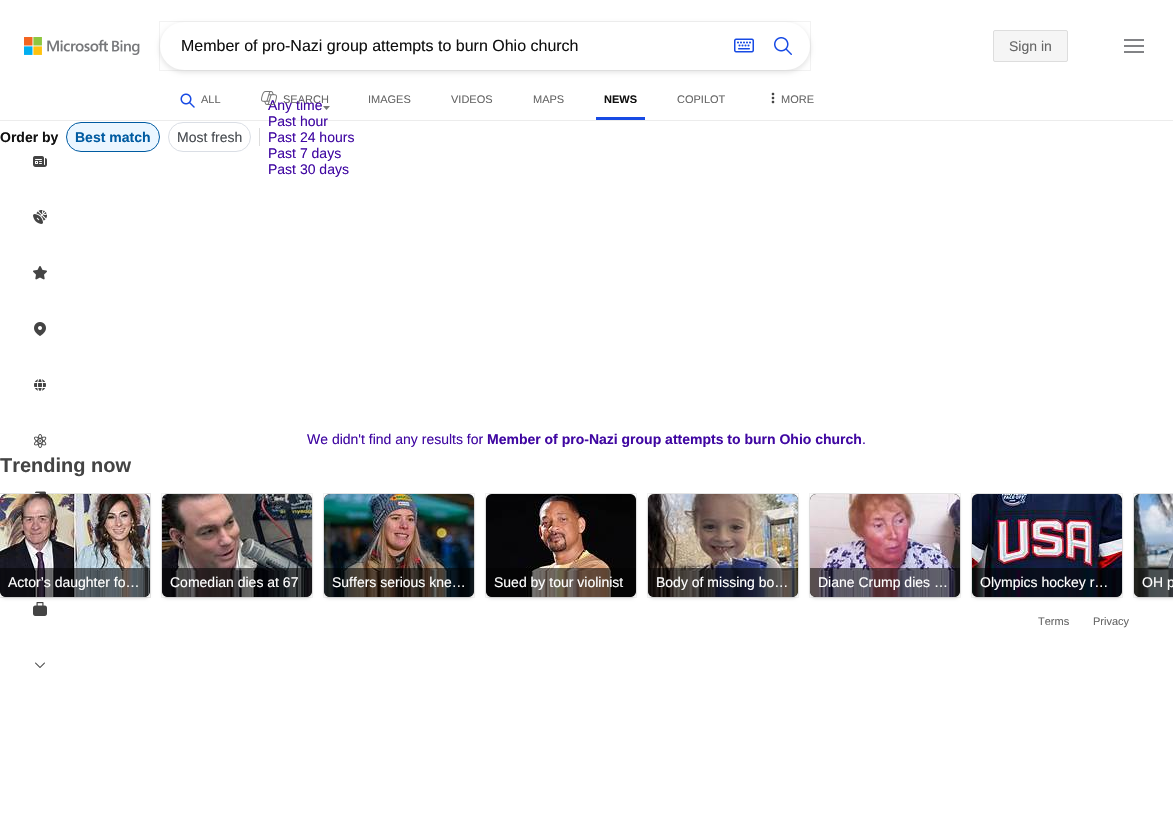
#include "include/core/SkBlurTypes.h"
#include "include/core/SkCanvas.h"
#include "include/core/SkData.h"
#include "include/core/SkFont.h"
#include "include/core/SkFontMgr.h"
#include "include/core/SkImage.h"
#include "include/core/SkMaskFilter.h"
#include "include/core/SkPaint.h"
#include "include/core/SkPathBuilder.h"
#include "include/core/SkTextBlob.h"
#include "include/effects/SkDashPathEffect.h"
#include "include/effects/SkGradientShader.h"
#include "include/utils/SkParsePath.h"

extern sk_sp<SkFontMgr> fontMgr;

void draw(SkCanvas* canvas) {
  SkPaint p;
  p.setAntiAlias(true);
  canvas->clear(SK_ColorWHITE);
  p.setColor(SkColorSetRGB(236, 236, 236));
  canvas->drawRect(SkRect::MakeLTRB(0, 120, 1173, 121), p);
  canvas->drawImageRect(SkImages::DeferredFromEncodedData(SkData::MakeFromFileName("images/1.png")), SkRect::MakeLTRB(24, 37, 140, 55), SkSamplingOptions());
  p.setColor(SkColorSetARGB(23, 0, 0, 0));
  p.setMaskFilter(SkMaskFilter::MakeBlur(kNormal_SkBlurStyle, 2));
  canvas->drawRoundRect(SkRect::MakeLTRB(159, 23, 811, 73), 25, 25, p);
  p.setMaskFilter(nullptr);
  p.setStyle(SkPaint::kStroke_Style);
  p.setStrokeWidth(1);
  p.setColor(SkColorSetARGB(13, 0, 0, 0));
  canvas->drawRect(SkRect::MakeLTRB(159.5f, 21.5f, 810.5f, 70.5f), p);
  p.setStyle(SkPaint::kFill_Style);
  p.setColor(SK_ColorWHITE);
  canvas->drawRoundRect(SkRect::MakeLTRB(160, 22, 810, 70), 24, 24, p);
  canvas->drawImageRect(SkImages::DeferredFromEncodedData(SkData::MakeFromFileName("images/2.png")), SkRect::MakeLTRB(734, 38, 754, 53), SkSamplingOptions());
  canvas->drawImageRect(SkImages::DeferredFromEncodedData(SkData::MakeFromFileName("images/3.png")), SkRect::MakeLTRB(774, 37, 792, 55), SkSamplingOptions());
  p.setColor(SkColorSetRGB(245, 245, 245));
  canvas->drawRoundRect(SkRect::MakeLTRB(993.5f, 30.5f, 1067.5f, 61.5f), 1.5f, 1.5f, p);
  p.setStyle(SkPaint::kStroke_Style);
  p.setColor(SkColorSetRGB(221, 221, 221));
  canvas->drawRoundRect(SkRect::MakeLTRB(993.5f, 30.5f, 1067.5f, 61.5f), 1.5f, 1.5f, p);
  canvas->drawImageRect(SkImages::DeferredFromEncodedData(SkData::MakeFromFileName("images/4.png")), SkRect::MakeLTRB(1124, 39, 1144, 53), SkSamplingOptions());
  canvas->drawImageRect(SkImages::DeferredFromEncodedData(SkData::MakeFromFileName("images/5.png")), SkRect::MakeLTRB(180, 93, 195, 108), SkSamplingOptions());
  p.setStyle(SkPaint::kFill_Style);
  p.setColor(SkColorSetRGB(23, 74, 228));
  canvas->drawRect(SkRect::MakeLTRB(596, 117, 645, 120), p);
  canvas->drawImageRect(SkImages::DeferredFromEncodedData(SkData::MakeFromFileName("images/7.png")), SkRect::MakeLTRB(771, 92, 775, 104), SkSamplingOptions());
  p.setColor(SkColorSetRGB(235, 246, 255));
  canvas->drawRoundRect(SkRect::MakeLTRB(66.5f, 122.5f, 159.5f, 151.5f), 14.5f, 14.5f, p);
  p.setStyle(SkPaint::kStroke_Style);
  p.setColor(SkColorSetRGB(0, 91, 161));
  canvas->drawRoundRect(SkRect::MakeLTRB(66.5f, 122.5f, 159.5f, 151.5f), 14.5f, 14.5f, p);
  p.setColor(SkColorSetRGB(218, 222, 229));
  canvas->drawRoundRect(SkRect::MakeLTRB(168.5f, 122.5f, 250.5f, 151.5f), 14.5f, 14.5f, p);
  p.setStyle(SkPaint::kFill_Style);
  p.setColor(SkColorSetRGB(221, 221, 221));
  canvas->drawRect(SkRect::MakeLTRB(259, 128, 260, 146), p);
  canvas->drawImageRect(SkImages::DeferredFromEncodedData(SkData::MakeFromFileName("images/8.png")), SkRect::MakeLTRB(323, 106, 330, 110), SkSamplingOptions());
  canvas->drawImageRect(SkImages::DeferredFromEncodedData(SkData::MakeFromFileName("images/31.png")), SkRect::MakeLTRB(35, 491, 46, 494), SkSamplingOptions());
  p.setStyle(SkPaint::kStroke_Style);
  p.setColor(SkColorSetARGB(13, 0, 0, 0));
  canvas->drawRect(SkRect::MakeLTRB(-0.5f, 493.5f, 150.5f, 597.5f), p);
  canvas->drawImageRect(SkImages::DeferredFromEncodedData(SkData::MakeFromFileName("images/32.png")), SkRect::MakeLTRB(33, 602, 47, 616), SkSamplingOptions());
  p.setStyle(SkPaint::kFill_Style);
  p.setColor(SkColorSetARGB(26, 0, 0, 0));
  p.setMaskFilter(SkMaskFilter::MakeBlur(kNormal_SkBlurStyle, 1.5f));
  canvas->drawRoundRect(SkRect::MakeLTRB(0, 496, 150, 599), 6, 6, p);
  p.setMaskFilter(nullptr);
  p.setStyle(SkPaint::kStroke_Style);
  p.setColor(SkColorSetARGB(13, 0, 0, 0));
  canvas->drawRect(SkRect::MakeLTRB(-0.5f, 493.5f, 150.5f, 597.5f), p);
  p.setStyle(SkPaint::kFill_Style);
  p.setColor(SkColorSetRGB(41, 40, 39));
  canvas->drawRoundRect(SkRect::MakeLTRB(0, 494, 150, 597), 6, 6, p);
  canvas->drawImageRect(SkImages::DeferredFromEncodedData(SkData::MakeFromFileName("images/9.png")), SkRect::MakeLTRB(0, 494, 150, 572), SkSamplingOptions());
  canvas->drawImageRect(SkImages::DeferredFromEncodedData(SkData::MakeFromFileName("images/10.png")), SkRect::MakeLTRB(0, 572, 150, 597), SkSamplingOptions());
  p.setColor(SkColorSetARGB(140, 0, 0, 0));
  canvas->drawPath(SkPathBuilder().moveTo(0, 568).lineTo(150, 568).lineTo(150, 591).cubicTo(150, 594.5f, 147.5f, 597, 144, 597).lineTo(6, 597).cubicTo(2.5f, 597, 0, 594.5f, 0, 591).close().detach(), p);
  p.setStyle(SkPaint::kStroke_Style);
  p.setColor(SkColorSetRGB(242, 242, 242));
  canvas->drawRoundRect(SkRect::MakeLTRB(161.5f, 493.5f, 312.5f, 597.5f), 6.5f, 6.5f, p);
  p.setStyle(SkPaint::kFill_Style);
  p.setColor(SkColorSetARGB(26, 0, 0, 0));
  p.setMaskFilter(SkMaskFilter::MakeBlur(kNormal_SkBlurStyle, 1.5f));
  canvas->drawRoundRect(SkRect::MakeLTRB(162, 496, 312, 599), 6, 6, p);
  p.setMaskFilter(nullptr);
  p.setStyle(SkPaint::kStroke_Style);
  p.setColor(SkColorSetARGB(13, 0, 0, 0));
  canvas->drawRect(SkRect::MakeLTRB(161.5f, 493.5f, 312.5f, 597.5f), p);
  p.setStyle(SkPaint::kFill_Style);
  p.setColor(SkColorSetRGB(41, 40, 39));
  canvas->drawRoundRect(SkRect::MakeLTRB(162, 494, 312, 597), 6, 6, p);
  canvas->drawImageRect(SkImages::DeferredFromEncodedData(SkData::MakeFromFileName("images/11.png")), SkRect::MakeLTRB(162, 494, 312, 572), SkSamplingOptions());
  canvas->drawImageRect(SkImages::DeferredFromEncodedData(SkData::MakeFromFileName("images/12.png")), SkRect::MakeLTRB(162, 572, 312, 597), SkSamplingOptions());
  p.setColor(SkColorSetARGB(140, 0, 0, 0));
  canvas->drawPath(SkPathBuilder().moveTo(162, 568).lineTo(312, 568).lineTo(312, 591).cubicTo(312, 594.5f, 309.5f, 597, 306, 597).lineTo(168, 597).cubicTo(164.5f, 597, 162, 594.5f, 162, 591).close().detach(), p);
  p.setStyle(SkPaint::kStroke_Style);
  p.setColor(SkColorSetRGB(242, 242, 242));
  canvas->drawRoundRect(SkRect::MakeLTRB(323.5f, 493.5f, 474.5f, 597.5f), 6.5f, 6.5f, p);
  p.setStyle(SkPaint::kFill_Style);
  p.setColor(SkColorSetARGB(26, 0, 0, 0));
  p.setMaskFilter(SkMaskFilter::MakeBlur(kNormal_SkBlurStyle, 1.5f));
  canvas->drawRoundRect(SkRect::MakeLTRB(324, 496, 474, 599), 6, 6, p);
  p.setMaskFilter(nullptr);
  p.setStyle(SkPaint::kStroke_Style);
  p.setColor(SkColorSetARGB(13, 0, 0, 0));
  canvas->drawRect(SkRect::MakeLTRB(323.5f, 493.5f, 474.5f, 597.5f), p);
  p.setStyle(SkPaint::kFill_Style);
  p.setColor(SkColorSetRGB(41, 40, 39));
  canvas->drawRoundRect(SkRect::MakeLTRB(324, 494, 474, 597), 6, 6, p);
  canvas->drawImageRect(SkImages::DeferredFromEncodedData(SkData::MakeFromFileName("images/13.png")), SkRect::MakeLTRB(324, 494, 474, 572), SkSamplingOptions());
  canvas->drawImageRect(SkImages::DeferredFromEncodedData(SkData::MakeFromFileName("images/14.png")), SkRect::MakeLTRB(324, 572, 474, 597), SkSamplingOptions());
  p.setColor(SkColorSetARGB(140, 0, 0, 0));
  canvas->drawPath(SkPathBuilder().moveTo(324, 568).lineTo(474, 568).lineTo(474, 591).cubicTo(474, 594.5f, 471.5f, 597, 468, 597).lineTo(330, 597).cubicTo(326.5f, 597, 324, 594.5f, 324, 591).close().detach(), p);
  p.setStyle(SkPaint::kStroke_Style);
  p.setColor(SkColorSetRGB(242, 242, 242));
  canvas->drawRoundRect(SkRect::MakeLTRB(485.5f, 493.5f, 636.5f, 597.5f), 6.5f, 6.5f, p);
  p.setStyle(SkPaint::kFill_Style);
  p.setColor(SkColorSetARGB(26, 0, 0, 0));
  p.setMaskFilter(SkMaskFilter::MakeBlur(kNormal_SkBlurStyle, 1.5f));
  canvas->drawRoundRect(SkRect::MakeLTRB(486, 496, 636, 599), 6, 6, p);
  p.setMaskFilter(nullptr);
  p.setStyle(SkPaint::kStroke_Style);
  p.setColor(SkColorSetARGB(13, 0, 0, 0));
  canvas->drawRect(SkRect::MakeLTRB(485.5f, 493.5f, 636.5f, 597.5f), p);
  p.setStyle(SkPaint::kFill_Style);
  p.setColor(SkColorSetRGB(41, 40, 39));
  canvas->drawRoundRect(SkRect::MakeLTRB(486, 494, 636, 597), 6, 6, p);
  canvas->drawImageRect(SkImages::DeferredFromEncodedData(SkData::MakeFromFileName("images/15.png")), SkRect::MakeLTRB(486, 494, 636, 572), SkSamplingOptions());
  canvas->drawImageRect(SkImages::DeferredFromEncodedData(SkData::MakeFromFileName("images/16.png")), SkRect::MakeLTRB(486, 572, 636, 597), SkSamplingOptions());
  p.setColor(SkColorSetARGB(140, 0, 0, 0));
  canvas->drawPath(SkPathBuilder().moveTo(486, 568).lineTo(636, 568).lineTo(636, 591).cubicTo(636, 594.5f, 633.5f, 597, 630, 597).lineTo(492, 597).cubicTo(488.5f, 597, 486, 594.5f, 486, 591).close().detach(), p);
  p.setStyle(SkPaint::kStroke_Style);
  p.setColor(SkColorSetRGB(242, 242, 242));
  canvas->drawRoundRect(SkRect::MakeLTRB(647.5f, 493.5f, 798.5f, 597.5f), 6.5f, 6.5f, p);
  p.setStyle(SkPaint::kFill_Style);
  p.setColor(SkColorSetARGB(26, 0, 0, 0));
  p.setMaskFilter(SkMaskFilter::MakeBlur(kNormal_SkBlurStyle, 1.5f));
  canvas->drawRoundRect(SkRect::MakeLTRB(648, 496, 798, 599), 6, 6, p);
  p.setMaskFilter(nullptr);
  p.setStyle(SkPaint::kStroke_Style);
  p.setColor(SkColorSetARGB(13, 0, 0, 0));
  canvas->drawRect(SkRect::MakeLTRB(647.5f, 493.5f, 798.5f, 597.5f), p);
  p.setStyle(SkPaint::kFill_Style);
  p.setColor(SkColorSetRGB(41, 40, 39));
  canvas->drawRoundRect(SkRect::MakeLTRB(648, 494, 798, 597), 6, 6, p);
  canvas->drawImageRect(SkImages::DeferredFromEncodedData(SkData::MakeFromFileName("images/17.png")), SkRect::MakeLTRB(648, 494, 798, 572), SkSamplingOptions());
  canvas->drawImageRect(SkImages::DeferredFromEncodedData(SkData::MakeFromFileName("images/18.png")), SkRect::MakeLTRB(648, 572, 798, 597), SkSamplingOptions());
  p.setColor(SkColorSetARGB(140, 0, 0, 0));
  canvas->drawPath(SkPathBuilder().moveTo(648, 568).lineTo(798, 568).lineTo(798, 591).cubicTo(798, 594.5f, 795.5f, 597, 792, 597).lineTo(654, 597).cubicTo(650.5f, 597, 648, 594.5f, 648, 591).close().detach(), p);
  p.setStyle(SkPaint::kStroke_Style);
  p.setColor(SkColorSetRGB(242, 242, 242));
  canvas->drawRoundRect(SkRect::MakeLTRB(809.5f, 493.5f, 960.5f, 597.5f), 6.5f, 6.5f, p);
  p.setStyle(SkPaint::kFill_Style);
  p.setColor(SkColorSetARGB(26, 0, 0, 0));
  p.setMaskFilter(SkMaskFilter::MakeBlur(kNormal_SkBlurStyle, 1.5f));
  canvas->drawRoundRect(SkRect::MakeLTRB(810, 496, 960, 599), 6, 6, p);
  p.setMaskFilter(nullptr);
  p.setStyle(SkPaint::kStroke_Style);
  p.setColor(SkColorSetARGB(13, 0, 0, 0));
  canvas->drawRect(SkRect::MakeLTRB(809.5f, 493.5f, 960.5f, 597.5f), p);
  p.setStyle(SkPaint::kFill_Style);
  p.setColor(SkColorSetRGB(41, 40, 39));
  canvas->drawRoundRect(SkRect::MakeLTRB(810, 494, 960, 597), 6, 6, p);
  canvas->drawImageRect(SkImages::DeferredFromEncodedData(SkData::MakeFromFileName("images/19.png")), SkRect::MakeLTRB(810, 494, 960, 572), SkSamplingOptions());
  canvas->drawImageRect(SkImages::DeferredFromEncodedData(SkData::MakeFromFileName("images/20.png")), SkRect::MakeLTRB(810, 572, 960, 597), SkSamplingOptions());
  p.setColor(SkColorSetARGB(140, 0, 0, 0));
  canvas->drawPath(SkPathBuilder().moveTo(810, 568).lineTo(960, 568).lineTo(960, 591).cubicTo(960, 594.5f, 957.5f, 597, 954, 597).lineTo(816, 597).cubicTo(812.5f, 597, 810, 594.5f, 810, 591).close().detach(), p);
  p.setStyle(SkPaint::kStroke_Style);
  p.setColor(SkColorSetRGB(242, 242, 242));
  canvas->drawRoundRect(SkRect::MakeLTRB(971.5f, 493.5f, 1122.5f, 597.5f), 6.5f, 6.5f, p);
  p.setStyle(SkPaint::kFill_Style);
  p.setColor(SkColorSetARGB(26, 0, 0, 0));
  p.setMaskFilter(SkMaskFilter::MakeBlur(kNormal_SkBlurStyle, 1.5f));
  canvas->drawRoundRect(SkRect::MakeLTRB(972, 496, 1122, 599), 6, 6, p);
  p.setMaskFilter(nullptr);
  p.setStyle(SkPaint::kStroke_Style);
  p.setColor(SkColorSetARGB(13, 0, 0, 0));
  canvas->drawRect(SkRect::MakeLTRB(971.5f, 493.5f, 1122.5f, 597.5f), p);
  p.setStyle(SkPaint::kFill_Style);
  p.setColor(SkColorSetRGB(41, 40, 39));
  canvas->drawRoundRect(SkRect::MakeLTRB(972, 494, 1122, 597), 6, 6, p);
  canvas->drawImageRect(SkImages::DeferredFromEncodedData(SkData::MakeFromFileName("images/21.png")), SkRect::MakeLTRB(972, 494, 1122, 572), SkSamplingOptions());
  canvas->drawImageRect(SkImages::DeferredFromEncodedData(SkData::MakeFromFileName("images/22.png")), SkRect::MakeLTRB(972, 572, 1122, 597), SkSamplingOptions());
  p.setColor(SkColorSetARGB(140, 0, 0, 0));
  canvas->drawPath(SkPathBuilder().moveTo(972, 568).lineTo(1122, 568).lineTo(1122, 591).cubicTo(1122, 594.5f, 1119.5f, 597, 1116, 597).lineTo(978, 597).cubicTo(974.5f, 597, 972, 594.5f, 972, 591).close().detach(), p);
  p.setStyle(SkPaint::kStroke_Style);
  p.setColor(SkColorSetRGB(242, 242, 242));
  canvas->drawRoundRect(SkRect::MakeLTRB(1133.5f, 493.5f, 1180.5f, 597.5f), 6.5f, 6.5f, p);
  p.setStyle(SkPaint::kFill_Style);
  p.setColor(SkColorSetARGB(26, 0, 0, 0));
  p.setMaskFilter(SkMaskFilter::MakeBlur(kNormal_SkBlurStyle, 1.5f));
  canvas->drawRoundRect(SkRect::MakeLTRB(1134, 496, 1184, 599), 6, 6, p);
  p.setMaskFilter(nullptr);
  p.setStyle(SkPaint::kStroke_Style);
  p.setColor(SkColorSetARGB(13, 0, 0, 0));
  canvas->drawRect(SkRect::MakeLTRB(1133.5f, 493.5f, 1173.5f, 597.5f), p);
  p.setStyle(SkPaint::kFill_Style);
  p.setColor(SkColorSetRGB(41, 40, 39));
  canvas->drawPath(SkPathBuilder().moveTo(1140, 494).lineTo(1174, 494).lineTo(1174, 597).lineTo(1140, 597).cubicTo(1136.5f, 597, 1134, 594.5f, 1134, 591).lineTo(1134, 500).cubicTo(1134, 496.5f, 1136.5f, 494, 1140, 494).close().detach(), p);
  canvas->drawImageRect(SkImages::DeferredFromEncodedData(SkData::MakeFromFileName("images/23.png")), SkRect::MakeLTRB(1134, 494, 1173, 572), SkSamplingOptions());
  canvas->drawImageRect(SkImages::DeferredFromEncodedData(SkData::MakeFromFileName("images/24.png")), SkRect::MakeLTRB(1134, 572, 1173, 597), SkSamplingOptions());
  p.setColor(SkColorSetARGB(140, 0, 0, 0));
  canvas->drawPath(SkPathBuilder().moveTo(1134, 568).lineTo(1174, 568).lineTo(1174, 597).lineTo(1140, 597).cubicTo(1136.5f, 597, 1134, 594.5f, 1134, 591).close().detach(), p);
  canvas->drawImageRect(SkImages::DeferredFromEncodedData(SkData::MakeFromFileName("images/25.png")), SkRect::MakeLTRB(33, 156, 47, 167), SkSamplingOptions());
  canvas->drawImageRect(SkImages::DeferredFromEncodedData(SkData::MakeFromFileName("images/26.png")), SkRect::MakeLTRB(33, 210, 47, 224), SkSamplingOptions());
  canvas->drawImageRect(SkImages::DeferredFromEncodedData(SkData::MakeFromFileName("images/27.png")), SkRect::MakeLTRB(33, 266, 47, 280), SkSamplingOptions());
  canvas->drawImageRect(SkImages::DeferredFromEncodedData(SkData::MakeFromFileName("images/28.png")), SkRect::MakeLTRB(34, 322, 46, 336), SkSamplingOptions());
  canvas->drawImageRect(SkImages::DeferredFromEncodedData(SkData::MakeFromFileName("images/29.png")), SkRect::MakeLTRB(34, 379, 46, 391), SkSamplingOptions());
  canvas->drawImageRect(SkImages::DeferredFromEncodedData(SkData::MakeFromFileName("images/30.png")), SkRect::MakeLTRB(34, 434, 47, 448), SkSamplingOptions());
  canvas->drawImageRect(SkImages::DeferredFromEncodedData(SkData::MakeFromFileName("images/33.png")), SkRect::MakeLTRB(35, 662, 45, 668), SkSamplingOptions());
  SkFont font1(fontMgr->matchFamilyStyle("Liberation Sans", SkFontStyle::Normal()), 16);
  font1.setSubpixel(true);
  p.setColor(SkColorSetRGB(17, 17, 17));
  canvas->drawString("Member of pro-Nazi group attempts to burn Ohio church", 181, 51, font1, p);
  SkFont font2(fontMgr->matchFamilyStyle("Liberation Sans", SkFontStyle::Normal()), 14);
  font2.setSubpixel(true);
  p.setColor(SkColorSetRGB(102, 102, 102));
  canvas->drawString("Sign in", 1009, 51, font2, p);
  SkFont font3(fontMgr->matchFamilyStyle("Liberation Sans", SkFontStyle::Normal()), 11);
  font3.setSubpixel(true);
  canvas->drawString("ALL", 201, 103, font3, p);
  canvas->drawString("IMAGES", 368, 103, font3, p);
  canvas->drawString("VIDEOS", 451, 103, font3, p);
  canvas->drawString("MAPS", 533, 103, font3, p);
  SkFont font4(fontMgr->matchFamilyStyle("Liberation Sans", SkFontStyle::Bold()), 11);
  font4.setSubpixel(true);
  p.setColor(SkColorSetRGB(17, 17, 17));
  canvas->drawString("NEWS", 604, 103, font4, p);
  p.setColor(SkColorSetRGB(102, 102, 102));
  canvas->drawString("COPILOT", 677, 103, font3, p);
  canvas->drawString("MORE", 781, 103, font3, p);
  SkFont font5(fontMgr->matchFamilyStyle("Liberation Sans", SkFontStyle::Bold()), 14);
  font5.setSubpixel(true);
  p.setColor(SkColorSetRGB(17, 17, 17));
  canvas->drawString("Order by", 0, 142, font5, p);
  p.setColor(SkColorSetRGB(0, 91, 161));
  canvas->drawString("Best match", 75, 142, font5, p);
  p.setColor(SkColorSetRGB(71, 75, 80));
  canvas->drawString("Most fresh", 177, 142, font2, p);
  p.setColor(SkColorSetRGB(64, 7, 162));
  canvas->drawString("Any time", 268, 110, font2, p);
  canvas->drawImageRect(SkImages::DeferredFromEncodedData(SkData::MakeFromFileName("images/6.png")), SkRect::MakeLTRB(261, 91, 277, 105), SkSamplingOptions());
  p.setColor(SkColorSetRGB(102, 102, 102));
  canvas->drawString("SEARCH", 283, 103, font3, p);
  p.setColor(SkColorSetRGB(64, 7, 162));
  canvas->drawString("Past hour", 268, 126, font2, p);
  canvas->drawString("Past 24 hours", 268, 142, font2, p);
  canvas->drawString("Past 7 days", 268, 158, font2, p);
  canvas->drawString("Past 30 days", 268, 174, font2, p);
  canvas->drawString("We didn't find any results for", 307, 444, font2, p);
  canvas->drawString("Member of pro-Nazi group attempts to burn Ohio church", 487, 444, font5, p);
  canvas->drawString(".", 862, 444, font2, p);
  SkFont font6(fontMgr->matchFamilyStyle("Liberation Sans", SkFontStyle::Bold()), 20);
  font6.setSubpixel(true);
  p.setColor(SkColorSetRGB(68, 68, 68));
  canvas->drawString("Trending now", 0, 472, font6, p);
  p.setColor(SK_ColorWHITE);
  canvas->drawString("Actor’s daughter fo…", 8, 587, font2, p);
  canvas->drawString("Comedian dies at 67", 170, 587, font2, p);
  canvas->drawString("Suffers serious kne…", 332, 587, font2, p);
  canvas->drawString("Sued by tour violinist", 494, 587, font2, p);
  canvas->drawString("Body of missing bo…", 656, 587, font2, p);
  canvas->drawString("Diane Crump dies …", 818, 587, font2, p);
  canvas->drawString("Olympics hockey r…", 980, 587, font2, p);
  canvas->drawString("OH p", 1142, 587, font2, p);
  p.setColor(SkColorSetRGB(102, 102, 102));
  canvas->drawString("Terms", 1038, 625, font3, p);
  canvas->drawString("Privacy", 1093, 625, font3, p);
}
